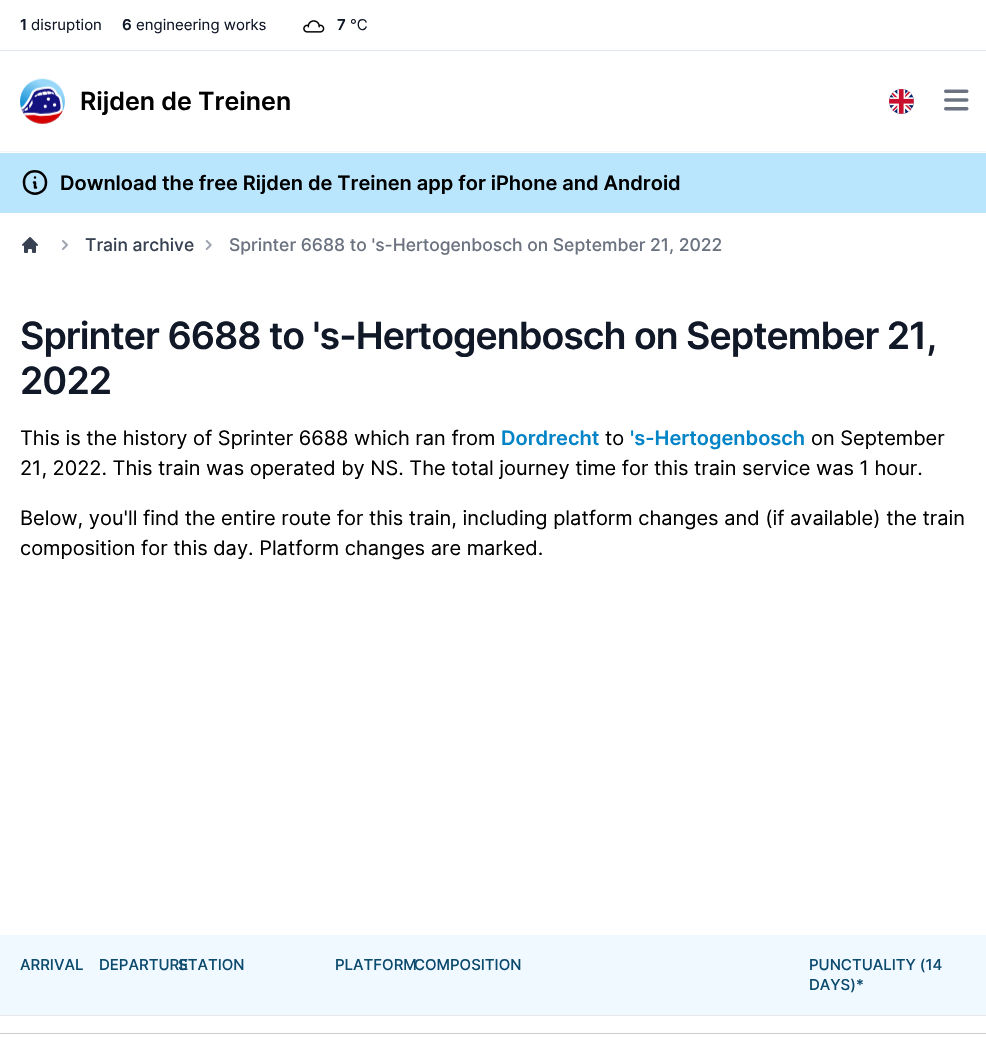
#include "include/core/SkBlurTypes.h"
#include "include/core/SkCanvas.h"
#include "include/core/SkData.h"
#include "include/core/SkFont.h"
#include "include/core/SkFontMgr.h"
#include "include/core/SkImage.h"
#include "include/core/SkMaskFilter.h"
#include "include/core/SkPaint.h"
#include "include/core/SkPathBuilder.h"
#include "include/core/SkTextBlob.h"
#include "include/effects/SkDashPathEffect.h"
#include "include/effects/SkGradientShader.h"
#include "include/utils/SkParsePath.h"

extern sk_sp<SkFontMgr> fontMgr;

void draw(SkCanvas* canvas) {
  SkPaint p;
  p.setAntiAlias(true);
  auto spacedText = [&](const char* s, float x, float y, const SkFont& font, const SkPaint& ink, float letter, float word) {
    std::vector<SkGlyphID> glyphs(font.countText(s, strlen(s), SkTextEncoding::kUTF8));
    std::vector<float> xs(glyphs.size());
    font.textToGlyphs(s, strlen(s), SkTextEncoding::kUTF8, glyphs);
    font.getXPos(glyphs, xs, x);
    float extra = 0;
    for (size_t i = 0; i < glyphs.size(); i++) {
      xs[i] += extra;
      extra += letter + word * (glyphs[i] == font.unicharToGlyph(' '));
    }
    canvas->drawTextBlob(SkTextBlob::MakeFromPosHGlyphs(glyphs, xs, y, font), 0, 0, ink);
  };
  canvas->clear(SK_ColorWHITE);
  p.setColor(SkColorSetRGB(226, 232, 240));
  canvas->drawRect(SkRect::MakeLTRB(0, 50, 986, 51), p);
  canvas->drawImageRect(SkImages::DeferredFromEncodedData(SkData::MakeFromFileName("images/1.png")), SkRect::MakeLTRB(303, 20, 325, 33), SkSamplingOptions());
  p.setColor(SkColorSetRGB(241, 245, 249));
  canvas->drawRect(SkRect::MakeLTRB(0, 151, 986, 152), p);
  canvas->drawImageRect(SkImages::DeferredFromEncodedData(SkData::MakeFromFileName("images/2.png")), SkRect::MakeLTRB(20, 78, 65, 124), SkSamplingOptions());
  canvas->drawImageRect(SkImages::DeferredFromEncodedData(SkData::MakeFromFileName("images/3.png")), SkRect::MakeLTRB(889, 89, 914, 114), SkSamplingOptions());
  canvas->drawImageRect(SkImages::DeferredFromEncodedData(SkData::MakeFromFileName("images/4.png")), SkRect::MakeLTRB(944, 89, 969, 111), SkSamplingOptions());
  p.setColor(SkColorSetRGB(186, 230, 253));
  canvas->drawRect(SkRect::MakeLTRB(0, 153, 986, 213), p);
  p.setStyle(SkPaint::kStroke_Style);
  p.setStrokeWidth(2.5f);
  p.setStrokeCap(SkPaint::kRound_Cap);
  p.setStrokeJoin(SkPaint::kRound_Join);
  p.setColor(SK_ColorBLACK);
  canvas->drawPath(SkPathBuilder().moveTo(36, 187.5f).lineTo(35, 187.5f).lineTo(35, 182.5f).lineTo(34, 182.5f).moveTo(35, 177.5f).lineTo(35, 177.5f).moveTo(46, 182.5f).cubicTo(46, 197.5f, 24, 197.5f, 24, 182.5f).cubicTo(23.5f, 167.5f, 46, 167.5f, 46, 182.5f).close().detach(), p);
  canvas->drawImageRect(SkImages::DeferredFromEncodedData(SkData::MakeFromFileName("images/5.png")), SkRect::MakeLTRB(22, 237, 38, 253), SkSamplingOptions());
  canvas->drawImageRect(SkImages::DeferredFromEncodedData(SkData::MakeFromFileName("images/6.png")), SkRect::MakeLTRB(62, 240, 68, 250), SkSamplingOptions());
  canvas->drawImageRect(SkImages::DeferredFromEncodedData(SkData::MakeFromFileName("images/7.png")), SkRect::MakeLTRB(205, 240, 212, 250), SkSamplingOptions());
  p.setStyle(SkPaint::kFill_Style);
  p.setColor(SkColorSetRGB(240, 249, 255));
  canvas->drawRect(SkRect::MakeLTRB(0, 935, 986, 1015), p);
  p.setColor(SkColorSetRGB(229, 231, 235));
  canvas->drawRect(SkRect::MakeLTRB(0, 1015, 986, 1016), p);
  p.setColor(SkColorSetRGB(204, 204, 204));
  canvas->drawRect(SkRect::MakeLTRB(0, 1033, 986, 1034), p);
  SkFont font1(fontMgr->matchFamilyStyle("Inter", SkFontStyle(600, SkFontStyle::kNormal_Width, SkFontStyle::kUpright_Slant)), 15);
  font1.setSubpixel(true);
  p.setColor(SkColorSetRGB(17, 24, 39));
  canvas->drawString("1", 20, 30, font1, p);
  SkFont font2(fontMgr->matchFamilyStyle("Inter", SkFontStyle::Normal()), 15);
  font2.setSubpixel(true);
  canvas->drawString("disruption", 31, 30, font2, p);
  canvas->drawString("6", 122, 30, font1, p);
  canvas->drawString("engineering works", 136, 30, font2, p);
  canvas->drawString("7", 337, 30, font1, p);
  canvas->drawString("°C", 350, 30, font2, p);
  SkFont font3(fontMgr->matchFamilyStyle("Inter", SkFontStyle(600, SkFontStyle::kNormal_Width, SkFontStyle::kUpright_Slant)), 25);
  font3.setSubpixel(true);
  p.setColor(SK_ColorBLACK);
  canvas->drawString("Rijden de Treinen", 80, 110, font3, p);
  SkFont font4(fontMgr->matchFamilyStyle("Inter", SkFontStyle(600, SkFontStyle::kNormal_Width, SkFontStyle::kUpright_Slant)), 20);
  font4.setSubpixel(true);
  canvas->drawString("Download the free Rijden de Treinen app for iPhone and Android", 60, 190, font4, p);
  SkFont font5(fontMgr->matchFamilyStyle("Inter", SkFontStyle(500, SkFontStyle::kNormal_Width, SkFontStyle::kUpright_Slant)), 17.5f);
  font5.setSubpixel(true);
  p.setColor(SkColorSetRGB(55, 65, 81));
  canvas->drawString("Train archive", 85, 251, font5, p);
  p.setColor(SkColorSetRGB(107, 114, 128));
  canvas->drawString("Sprinter 6688 to 's-Hertogenbosch on September 21, 2022", 229, 251, font5, p);
  SkFont font6(fontMgr->matchFamilyStyle("Inter", SkFontStyle(600, SkFontStyle::kNormal_Width, SkFontStyle::kUpright_Slant)), 37.5f);
  font6.setSubpixel(true);
  p.setColor(SkColorSetRGB(17, 24, 39));
  spacedText("Sprinter 6688 to 's-Hertogenbosch on September 21,", 20, 349, font6, p, -0.95f, 0);
  spacedText("2022", 20, 394, font6, p, -0.95f, 0);
  SkFont font7(fontMgr->matchFamilyStyle("Inter", SkFontStyle::Normal()), 20);
  font7.setSubpixel(true);
  p.setColor(SK_ColorBLACK);
  canvas->drawString("This is the history of Sprinter 6688 which ran from", 20, 445, font7, p);
  p.setColor(SkColorSetRGB(2, 132, 199));
  canvas->drawString("Dordrecht", 501, 445, font4, p);
  p.setColor(SK_ColorBLACK);
  canvas->drawString("to", 605, 445, font7, p);
  p.setColor(SkColorSetRGB(2, 132, 199));
  canvas->drawString("'s-Hertogenbosch", 630, 445, font4, p);
  p.setColor(SK_ColorBLACK);
  canvas->drawString("on September", 811, 445, font7, p);
  canvas->drawString("21, 2022. This train was operated by NS. The total journey time for this train service was 1 hour.", 20, 475, font7, p);
  canvas->drawString("Below, you'll find the entire route for this train, including platform changes and (if available) the train", 20, 525, font7, p);
  canvas->drawString("composition for this day. Platform changes are marked.", 20, 555, font7, p);
  SkFont font8(fontMgr->matchFamilyStyle("Inter", SkFontStyle(500, SkFontStyle::kNormal_Width, SkFontStyle::kUpright_Slant)), 15);
  font8.setSubpixel(true);
  p.setColor(SkColorSetRGB(12, 74, 110));
  canvas->drawString("ARRIVAL", 20, 970, font8, p);
  canvas->drawString("DEPARTURE", 99, 970, font8, p);
  canvas->drawString("STATION", 178, 970, font8, p);
  canvas->drawString("PLATFORM", 335, 970, font8, p);
  canvas->drawString("COMPOSITION", 414, 970, font8, p);
  canvas->drawString("PUNCTUALITY (14", 809, 970, font8, p);
  canvas->drawString("DAYS)*", 809, 990, font8, p);
}
